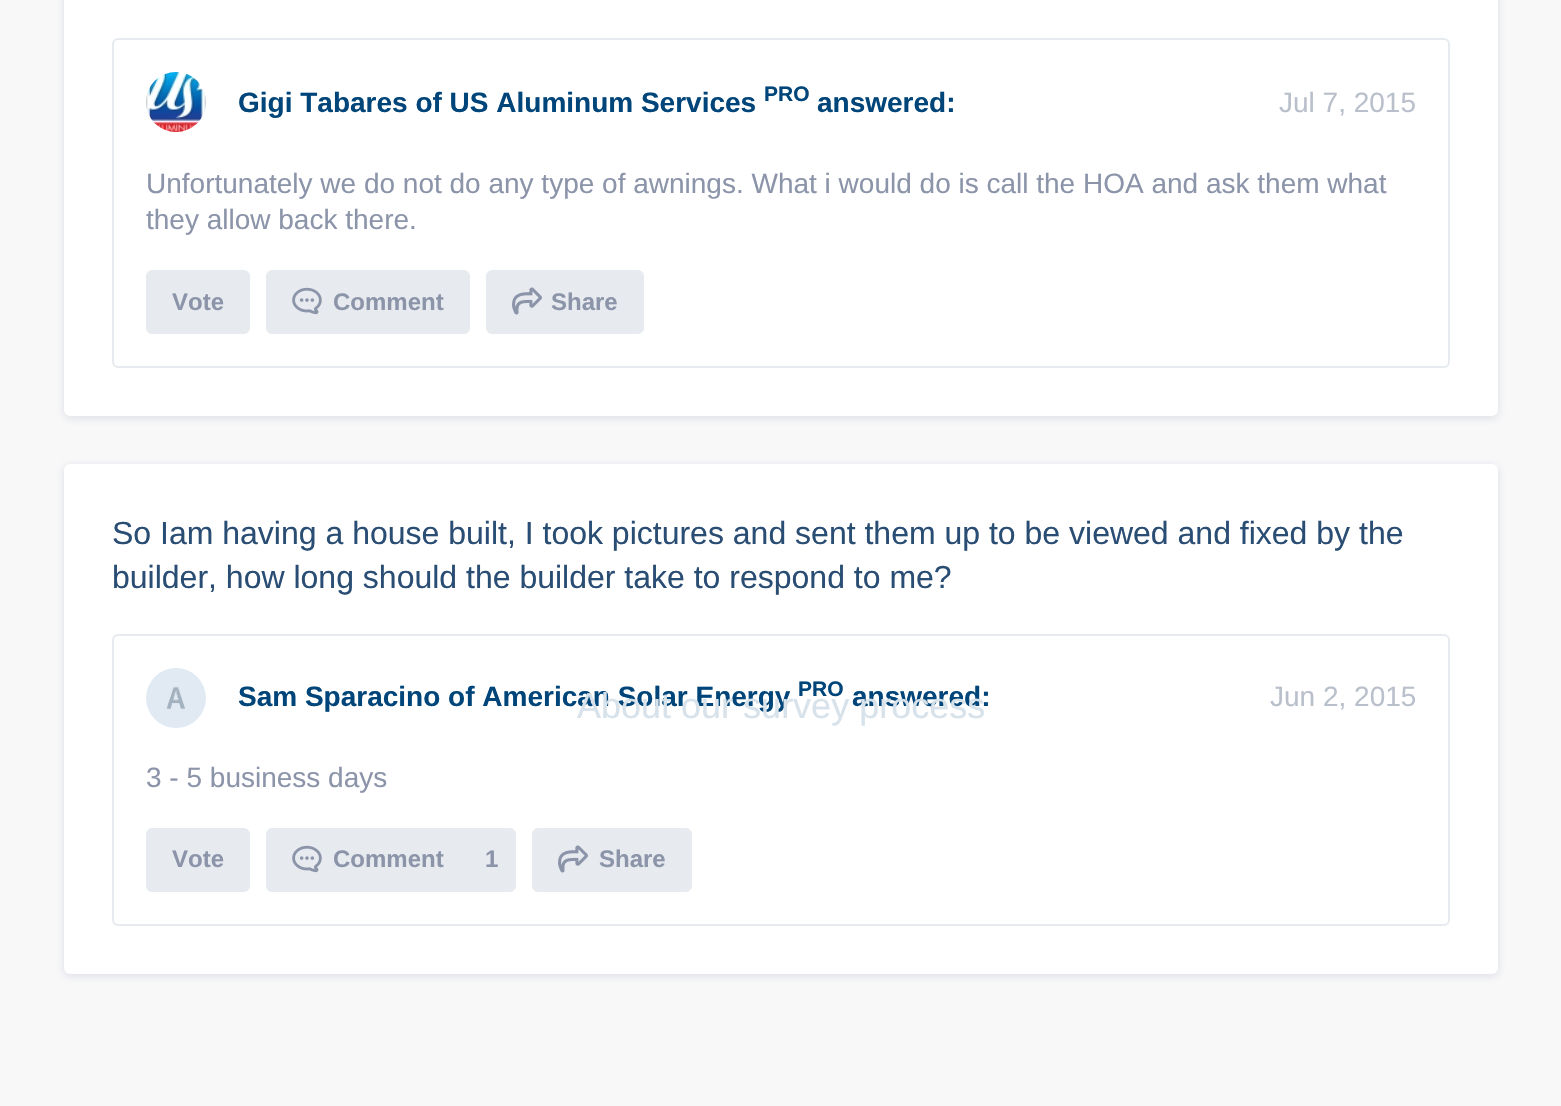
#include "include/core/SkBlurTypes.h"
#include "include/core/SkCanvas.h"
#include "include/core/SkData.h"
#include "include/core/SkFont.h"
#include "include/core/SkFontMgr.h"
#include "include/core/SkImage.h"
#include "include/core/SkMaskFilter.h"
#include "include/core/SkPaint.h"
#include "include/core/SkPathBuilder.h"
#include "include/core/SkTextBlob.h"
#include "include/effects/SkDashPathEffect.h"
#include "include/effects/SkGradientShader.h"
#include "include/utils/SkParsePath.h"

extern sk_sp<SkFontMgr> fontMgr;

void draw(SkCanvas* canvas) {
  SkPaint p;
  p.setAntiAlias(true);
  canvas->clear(SkColorSetRGB(248, 248, 249));
  p.setColor(SkColorSetARGB(38, 51, 74, 109));
  p.setMaskFilter(SkMaskFilter::MakeBlur(kNormal_SkBlurStyle, 4));
  canvas->drawRoundRect(SkRect::MakeLTRB(64, -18, 1498, 418), 6, 6, p);
  p.setMaskFilter(nullptr);
  p.setColor(SK_ColorWHITE);
  canvas->drawRoundRect(SkRect::MakeLTRB(64, -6, 1498, 416), 6, 6, p);
  p.setStyle(SkPaint::kStroke_Style);
  p.setStrokeWidth(2);
  p.setColor(SkColorSetRGB(231, 235, 239));
  canvas->drawRoundRect(SkRect::MakeLTRB(113, 39, 1449, 367), 5, 5, p);
  canvas->drawImageRect(SkImages::DeferredFromEncodedData(SkData::MakeFromFileName("images/1.png")), SkRect::MakeLTRB(146, 72, 206, 132), SkSamplingOptions());
  p.setStyle(SkPaint::kFill_Style);
  canvas->drawPath(SkPathBuilder().moveTo(152, 270).lineTo(244, 270).cubicTo(247, 270, 250, 273, 250, 276).lineTo(250, 328).cubicTo(250, 331, 247, 334, 244, 334).lineTo(152, 334).cubicTo(149, 334, 146, 331, 146, 328).lineTo(146, 276).cubicTo(146, 273, 149, 270, 152, 270).close().detach(), p);
  canvas->drawPath(SkPathBuilder().moveTo(272, 270).lineTo(464, 270).cubicTo(467, 270, 470, 273, 470, 276).lineTo(470, 328).cubicTo(470, 331, 467, 334, 464, 334).lineTo(272, 334).cubicTo(269, 334, 266, 331, 266, 328).lineTo(266, 276).cubicTo(266, 273, 269, 270, 272, 270).close().detach(), p);
  canvas->drawImageRect(SkImages::DeferredFromEncodedData(SkData::MakeFromFileName("images/2.png")), SkRect::MakeLTRB(292, 287, 322, 315), SkSamplingOptions());
  canvas->drawPath(SkPathBuilder().moveTo(492, 270).lineTo(638, 270).cubicTo(641, 270, 644, 273, 644, 276).lineTo(644, 328).cubicTo(644, 331, 641, 334, 638, 334).lineTo(492, 334).cubicTo(489, 334, 486, 331, 486, 328).lineTo(486, 276).cubicTo(486, 273, 489, 270, 492, 270).close().detach(), p);
  canvas->drawImageRect(SkImages::DeferredFromEncodedData(SkData::MakeFromFileName("images/3.png")), SkRect::MakeLTRB(512, 287, 542, 315), SkSamplingOptions());
  p.setColor(SkColorSetARGB(38, 51, 74, 109));
  p.setMaskFilter(SkMaskFilter::MakeBlur(kNormal_SkBlurStyle, 4));
  canvas->drawRoundRect(SkRect::MakeLTRB(64, 466, 1498, 976), 6, 6, p);
  p.setMaskFilter(nullptr);
  p.setColor(SK_ColorWHITE);
  canvas->drawRoundRect(SkRect::MakeLTRB(64, 464, 1498, 974), 6, 6, p);
  p.setStyle(SkPaint::kStroke_Style);
  p.setColor(SkColorSetRGB(231, 235, 239));
  canvas->drawRoundRect(SkRect::MakeLTRB(113, 635, 1449, 925), 5, 5, p);
  canvas->drawImageRect(SkImages::DeferredFromEncodedData(SkData::MakeFromFileName("images/4.png")), SkRect::MakeLTRB(146, 668, 206, 728), SkSamplingOptions());
  p.setStyle(SkPaint::kFill_Style);
  canvas->drawPath(SkPathBuilder().moveTo(152, 828).lineTo(244, 828).cubicTo(247, 828, 250, 831, 250, 834).lineTo(250, 886).cubicTo(250, 889, 247, 892, 244, 892).lineTo(152, 892).cubicTo(149, 892, 146, 889, 146, 886).lineTo(146, 834).cubicTo(146, 831, 149, 828, 152, 828).close().detach(), p);
  canvas->drawPath(SkPathBuilder().moveTo(272, 828).lineTo(510, 828).cubicTo(513, 828, 516, 831, 516, 834).lineTo(516, 886).cubicTo(516, 889, 513, 892, 510, 892).lineTo(272, 892).cubicTo(269, 892, 266, 889, 266, 886).lineTo(266, 834).cubicTo(266, 831, 269, 828, 272, 828).close().detach(), p);
  canvas->drawImageRect(SkImages::DeferredFromEncodedData(SkData::MakeFromFileName("images/2.png")), SkRect::MakeLTRB(292, 845, 322, 873), SkSamplingOptions());
  canvas->drawPath(SkPathBuilder().moveTo(538, 828).lineTo(686, 828).cubicTo(689, 828, 692, 831, 692, 834).lineTo(692, 886).cubicTo(692, 889, 689, 892, 686, 892).lineTo(538, 892).cubicTo(535, 892, 532, 889, 532, 886).lineTo(532, 834).cubicTo(532, 831, 535, 828, 538, 828).close().detach(), p);
  canvas->drawImageRect(SkImages::DeferredFromEncodedData(SkData::MakeFromFileName("images/3.png")), SkRect::MakeLTRB(558, 845, 588, 873), SkSamplingOptions());
  SkFont font1(fontMgr->matchFamilyStyle("Liberation Sans", SkFontStyle::Bold()), 28);
  font1.setSubpixel(true);
  p.setColor(SkColorSetRGB(0, 69, 121));
  canvas->drawString("Gigi Tabares of US Aluminum Services", 238, 112, font1, p);
  SkFont font2(fontMgr->matchFamilyStyle("Liberation Sans", SkFontStyle::Bold()), 21);
  font2.setSubpixel(true);
  canvas->drawString("PRO", 764, 101, font2, p);
  canvas->drawString("answered:", 817, 112, font1, p);
  SkFont font3(fontMgr->matchFamilyStyle("Liberation Sans", SkFontStyle::Normal()), 28);
  font3.setSubpixel(true);
  p.setColor(SkColorSetRGB(185, 191, 203));
  canvas->drawString("Jul 7, 2015", 1279, 112, font3, p);
  p.setColor(SkColorSetRGB(139, 148, 169));
  canvas->drawString("Unfortunately we do not do any type of awnings. What i would do is call the HOA and ask them what", 146, 193, font3, p);
  canvas->drawString("they allow back there.", 146, 229, font3, p);
  SkFont font4(fontMgr->matchFamilyStyle("Liberation Sans", SkFontStyle::Bold()), 24);
  font4.setSubpixel(true);
  canvas->drawString("Vote", 172, 310, font4, p);
  canvas->drawString("Comment", 333, 310, font4, p);
  canvas->drawString("Share", 551, 310, font4, p);
  SkFont font5(fontMgr->matchFamilyStyle("Liberation Sans", SkFontStyle::Normal()), 32);
  font5.setSubpixel(true);
  p.setColor(SkColorSetRGB(42, 77, 116));
  canvas->drawString("So Iam having a house built, I took pictures and sent them up to be viewed and fixed by the", 112, 544, font5, p);
  canvas->drawString("builder, how long should the builder take to respond to me?", 112, 588, font5, p);
  p.setColor(SkColorSetRGB(0, 69, 121));
  canvas->drawString("Sam Sparacino of American Solar Energy", 238, 706, font1, p);
  canvas->drawString("PRO", 798, 696, font2, p);
  canvas->drawString("answered:", 852, 706, font1, p);
  p.setColor(SkColorSetRGB(185, 191, 203));
  canvas->drawString("Jun 2, 2015", 1270, 706, font3, p);
  p.setColor(SkColorSetRGB(139, 148, 169));
  canvas->drawString("3 - 5 business days", 146, 787, font3, p);
  canvas->drawString("Vote", 172, 867, font4, p);
  canvas->drawString("Comment", 333, 867, font4, p);
  canvas->drawString("1", 485, 867, font4, p);
  canvas->drawString("Share", 599, 867, font4, p);
  SkFont font6(fontMgr->matchFamilyStyle("Liberation Sans", SkFontStyle::Normal()), 36);
  font6.setSubpixel(true);
  p.setColor(SkColorSetRGB(215, 226, 234));
  canvas->drawString("About our survey process", 577, 718, font6, p);
}
